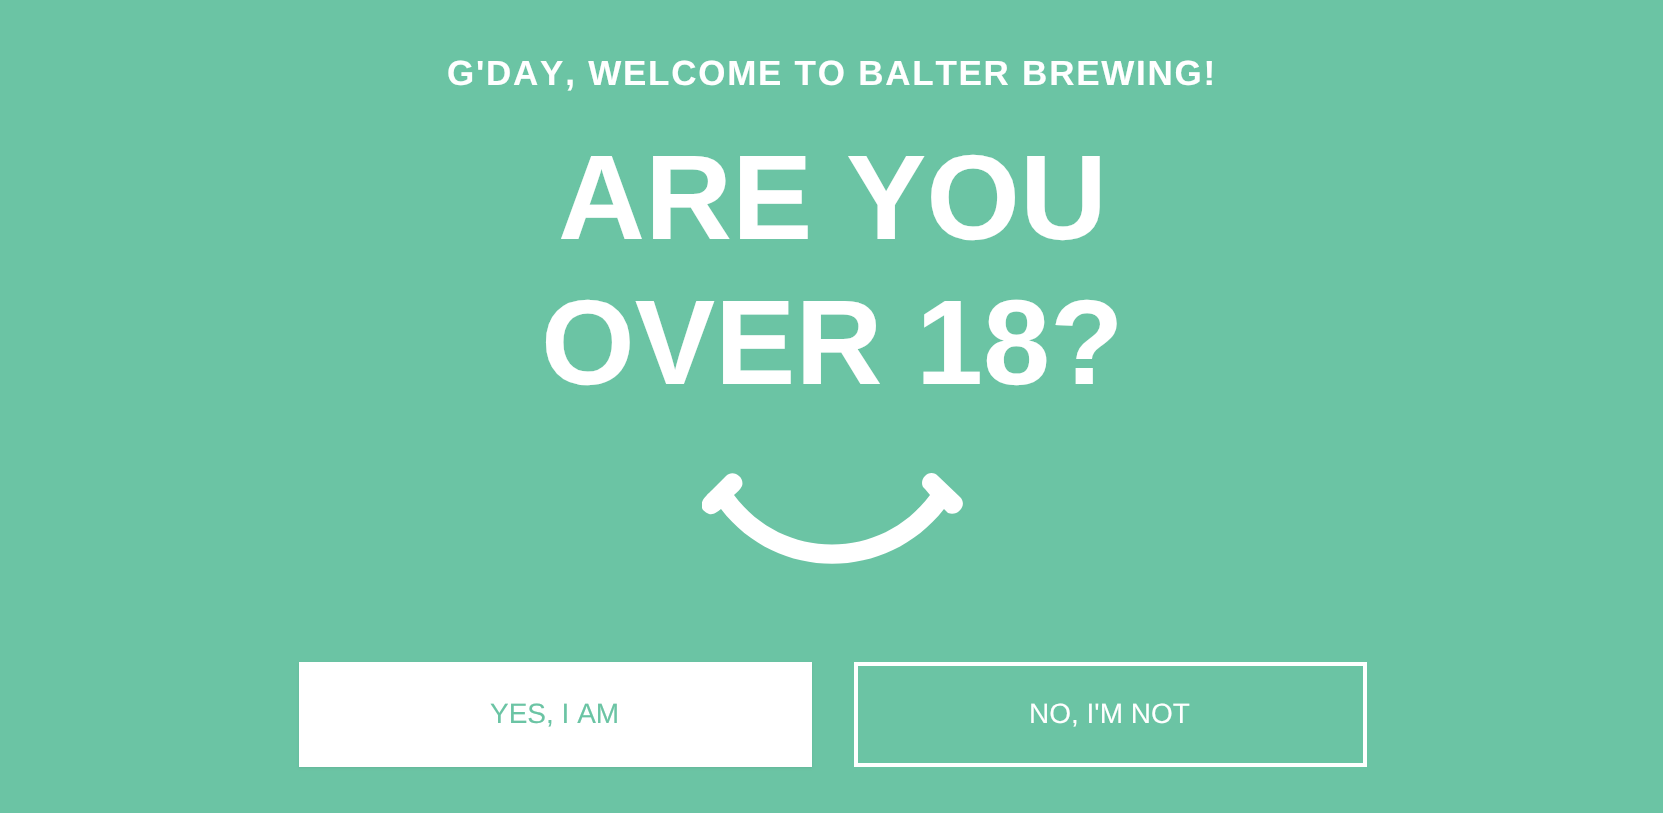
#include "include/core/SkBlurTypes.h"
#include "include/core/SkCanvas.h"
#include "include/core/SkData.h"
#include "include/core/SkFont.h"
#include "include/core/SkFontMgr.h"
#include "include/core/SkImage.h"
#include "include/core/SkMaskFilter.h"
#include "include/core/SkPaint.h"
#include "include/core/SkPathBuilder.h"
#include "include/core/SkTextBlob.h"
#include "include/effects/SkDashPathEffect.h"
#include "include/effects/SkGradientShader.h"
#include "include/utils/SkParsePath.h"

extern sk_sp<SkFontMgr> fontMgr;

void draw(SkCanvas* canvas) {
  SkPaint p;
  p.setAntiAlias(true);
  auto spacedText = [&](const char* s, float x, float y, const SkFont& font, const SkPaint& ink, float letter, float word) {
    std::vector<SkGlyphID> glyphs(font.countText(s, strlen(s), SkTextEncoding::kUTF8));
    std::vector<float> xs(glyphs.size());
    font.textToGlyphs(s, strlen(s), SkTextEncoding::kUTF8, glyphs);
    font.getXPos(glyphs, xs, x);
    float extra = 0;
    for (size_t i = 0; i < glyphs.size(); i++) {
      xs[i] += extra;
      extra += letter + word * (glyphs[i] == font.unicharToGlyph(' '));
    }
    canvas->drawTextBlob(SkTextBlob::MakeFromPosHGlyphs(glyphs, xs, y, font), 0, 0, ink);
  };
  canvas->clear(SkColorSetRGB(107, 196, 164));
  canvas->save();
  canvas->clipRect(SkRect::MakeLTRB(702, 473, 964, 564));
  p.setColor(SK_ColorWHITE);
  canvas->drawPath(SkPathBuilder().moveTo(960, 497).lineTo(938, 476).cubicTo(935, 472, 928, 472, 925, 476).cubicTo(921, 480, 921, 486, 925, 489).lineTo(930, 495).cubicTo(881, 561, 783, 561, 734, 495).cubicTo(737, 492, 740, 490, 742, 486).cubicTo(745, 477, 733, 469, 726, 476).lineTo(712, 490).cubicTo(707, 495, 698, 502, 703, 510).cubicTo(705, 512, 707, 513, 709, 514).cubicTo(714, 515, 717, 512, 721, 509).cubicTo(777, 582, 887, 582, 944, 509).lineTo(948, 513).cubicTo(958, 517, 968, 505, 960, 497).detach(), p);
  canvas->restore();
  p.setColor(SkColorSetARGB(18, 0, 0, 0));
  p.setMaskFilter(SkMaskFilter::MakeBlur(kNormal_SkBlurStyle, 1));
  canvas->drawRect(SkRect::MakeLTRB(299, 663, 812, 768), p);
  p.setMaskFilter(nullptr);
  p.setColor(SK_ColorWHITE);
  canvas->drawRect(SkRect::MakeLTRB(299, 662, 812, 767), p);
  p.setStyle(SkPaint::kStroke_Style);
  p.setStrokeWidth(4);
  canvas->drawRect(SkRect::MakeLTRB(856, 664, 1365, 765), p);
  SkFont font1(fontMgr->matchFamilyStyle("Liberation Sans", SkFontStyle::Bold()), 35);
  font1.setSubpixel(true);
  p.setStyle(SkPaint::kFill_Style);
  spacedText("G'DAY, WELCOME TO BALTER BREWING!", 447, 85, font1, p, 1.75f, 0);
  SkFont font2(fontMgr->matchFamilyStyle("Liberation Sans", SkFontStyle::Bold()), 120.5f);
  font2.setSubpixel(true);
  canvas->drawString("ARE YOU", 558, 239, font2, p);
  canvas->drawString("OVER 18?", 541, 384, font2, p);
  SkFont font3(fontMgr->matchFamilyStyle("Liberation Sans", SkFontStyle::Normal()), 28);
  font3.setSubpixel(true);
  p.setColor(SkColorSetRGB(107, 196, 164));
  canvas->drawString("YES, I AM", 490, 723, font3, p);
  p.setColor(SK_ColorWHITE);
  canvas->drawString("NO, I'M NOT", 1029, 723, font3, p);
}
